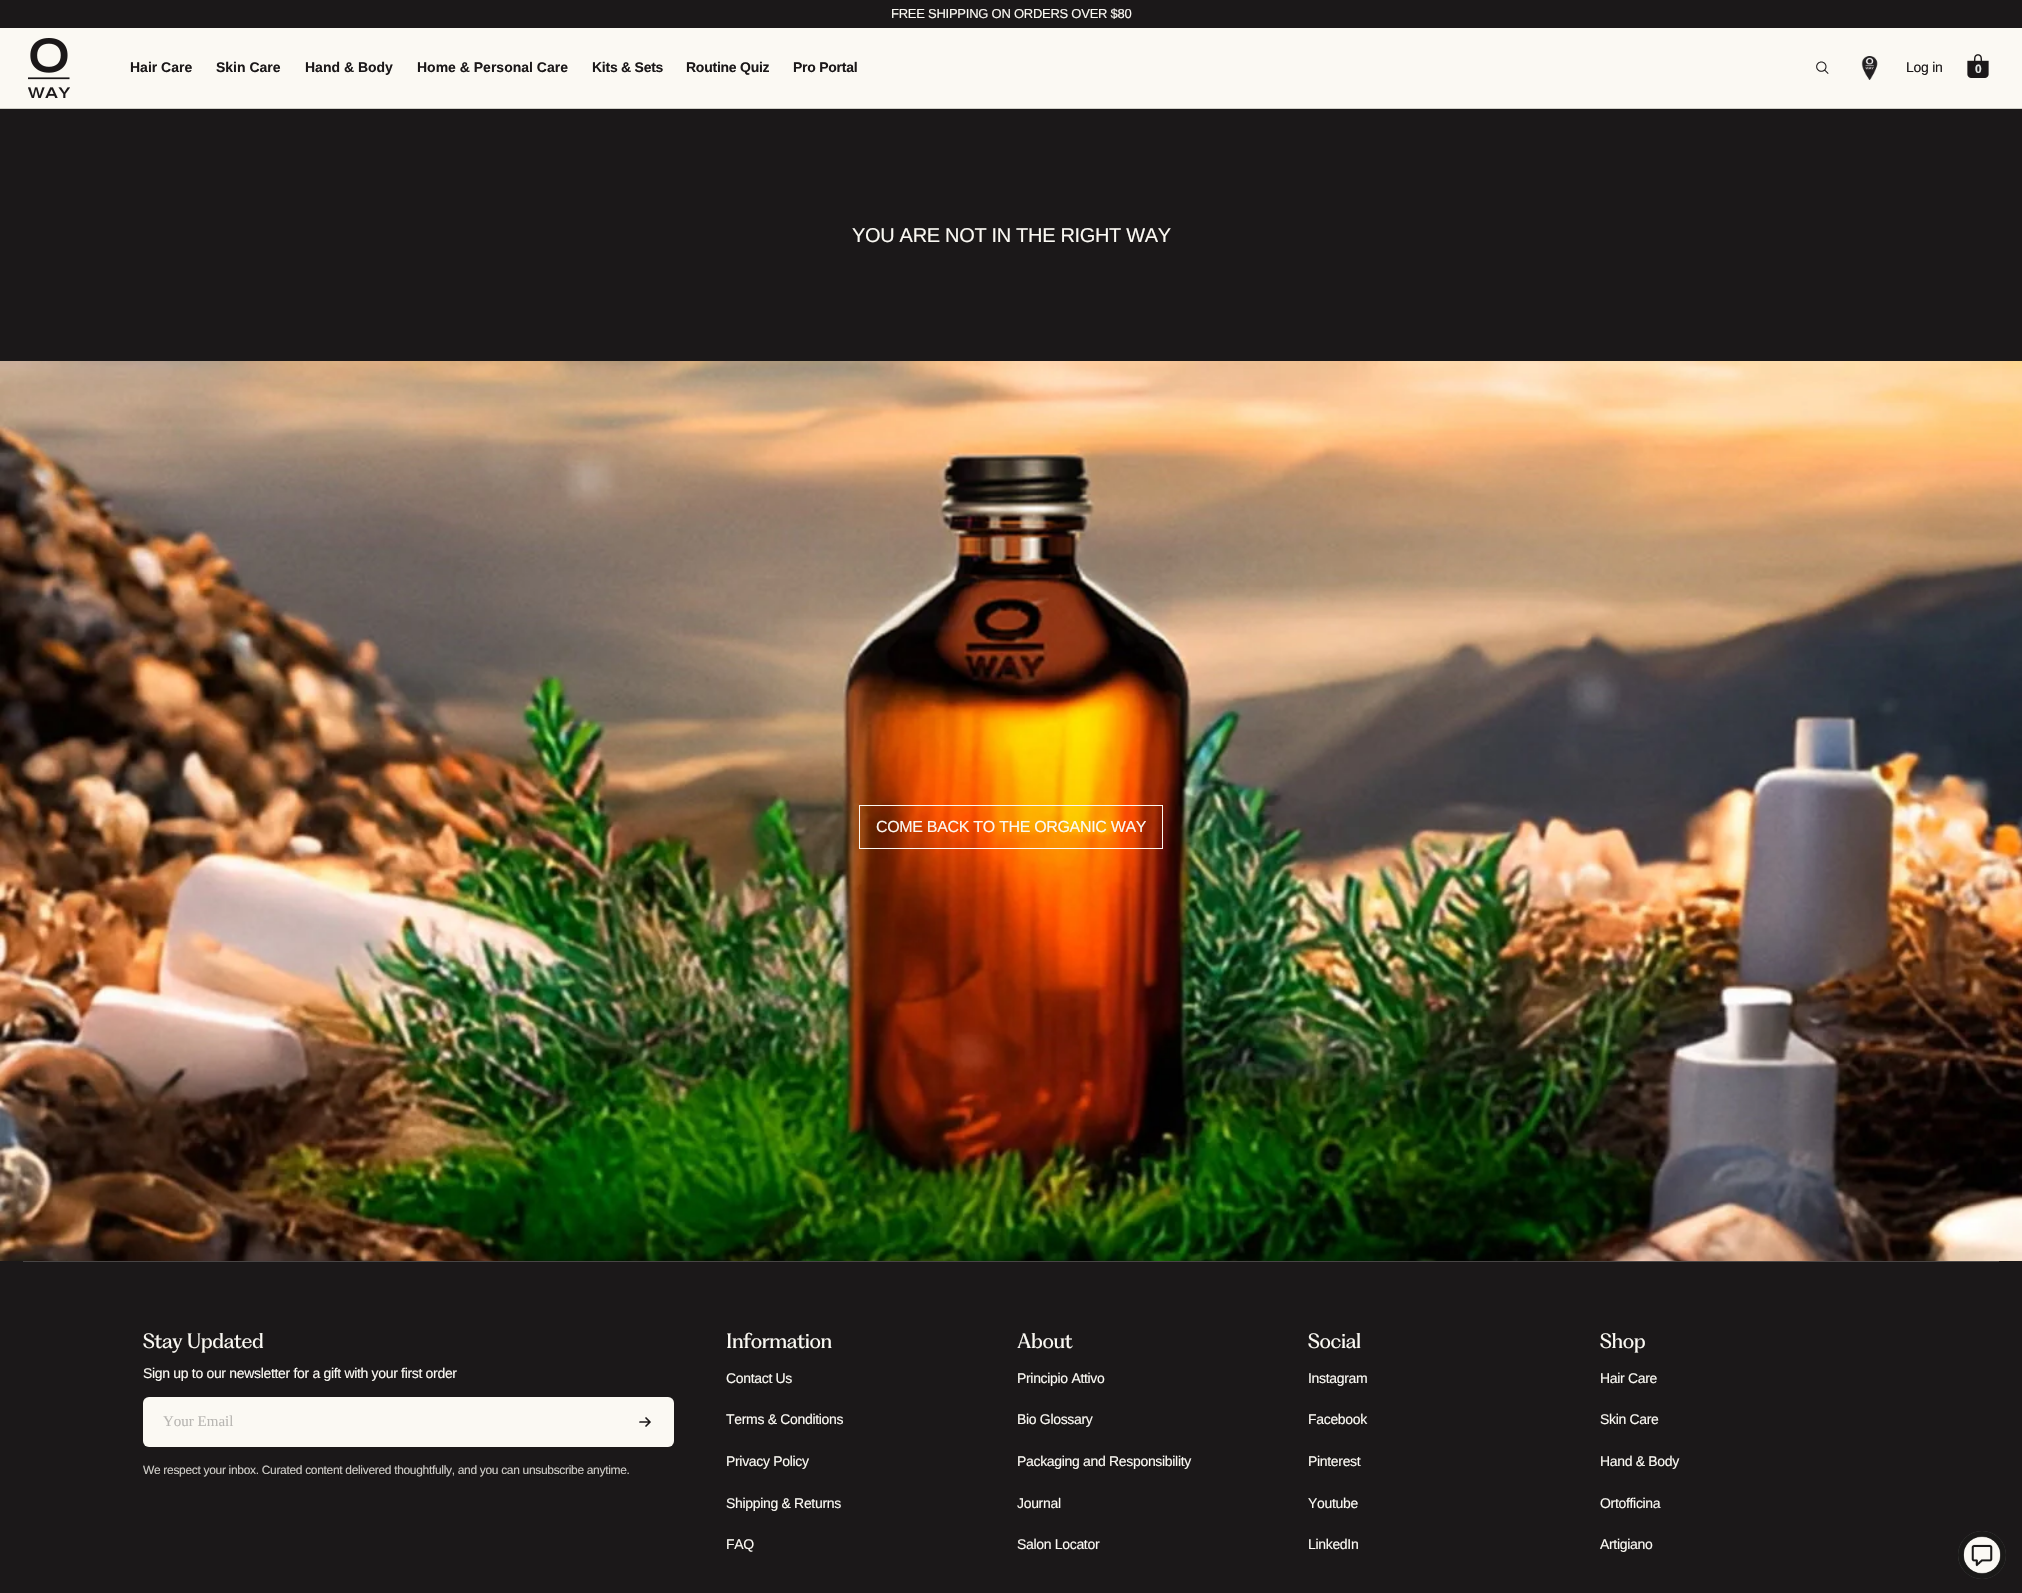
#include "include/core/SkBlurTypes.h"
#include "include/core/SkCanvas.h"
#include "include/core/SkData.h"
#include "include/core/SkFont.h"
#include "include/core/SkFontMgr.h"
#include "include/core/SkImage.h"
#include "include/core/SkMaskFilter.h"
#include "include/core/SkPaint.h"
#include "include/core/SkPathBuilder.h"
#include "include/core/SkTextBlob.h"
#include "include/effects/SkDashPathEffect.h"
#include "include/effects/SkGradientShader.h"
#include "include/utils/SkParsePath.h"

extern sk_sp<SkFontMgr> fontMgr;

void draw(SkCanvas* canvas) {
  SkPaint p;
  p.setAntiAlias(true);
  auto spacedText = [&](const char* s, float x, float y, const SkFont& font, const SkPaint& ink, float letter, float word) {
    std::vector<SkGlyphID> glyphs(font.countText(s, strlen(s), SkTextEncoding::kUTF8));
    std::vector<float> xs(glyphs.size());
    font.textToGlyphs(s, strlen(s), SkTextEncoding::kUTF8, glyphs);
    font.getXPos(glyphs, xs, x);
    float extra = 0;
    for (size_t i = 0; i < glyphs.size(); i++) {
      xs[i] += extra;
      extra += letter + word * (glyphs[i] == font.unicharToGlyph(' '));
    }
    canvas->drawTextBlob(SkTextBlob::MakeFromPosHGlyphs(glyphs, xs, y, font), 0, 0, ink);
  };
  canvas->clear(SkColorSetRGB(251, 249, 243));
  p.setColor(SkColorSetRGB(27, 24, 25));
  canvas->drawRect(SkRect::MakeLTRB(0, 0, 2022, 28), p);
  p.setColor(SkColorSetRGB(208, 208, 200));
  canvas->drawRect(SkRect::MakeLTRB(0, 108, 2022, 109), p);
  canvas->drawImageRect(SkImages::DeferredFromEncodedData(SkData::MakeFromFileName("images/1.png")), SkRect::MakeLTRB(28, 38, 70, 98), SkSamplingOptions());
  canvas->drawImageRect(SkImages::DeferredFromEncodedData(SkData::MakeFromFileName("images/2.png")), SkRect::MakeLTRB(1816, 61, 1829, 74), SkSamplingOptions());
  canvas->drawImageRect(SkImages::DeferredFromEncodedData(SkData::MakeFromFileName("images/3.png")), SkRect::MakeLTRB(1861, 56, 1878, 80), SkSamplingOptions());
  canvas->drawImageRect(SkImages::DeferredFromEncodedData(SkData::MakeFromFileName("images/4.png")), SkRect::MakeLTRB(1967, 54, 1989, 78), SkSamplingOptions());
  p.setColor(SkColorSetRGB(27, 24, 25));
  canvas->drawRect(SkRect::MakeLTRB(0, 109, 2022, 361), p);
  canvas->drawImageRect(SkImages::DeferredFromEncodedData(SkData::MakeFromFileName("images/5.png")), SkRect::MakeLTRB(0, 361, 2022, 1261), SkSamplingOptions());
  p.setStyle(SkPaint::kStroke_Style);
  p.setStrokeWidth(1);
  p.setColor(SkColorSetRGB(251, 249, 243));
  canvas->drawRect(SkRect::MakeLTRB(859.5f, 805.5f, 1162.5f, 848.5f), p);
  p.setStyle(SkPaint::kFill_Style);
  p.setColor(SkColorSetRGB(27, 24, 25));
  canvas->drawRect(SkRect::MakeLTRB(0, 1261, 2022, 1593), p);
  p.setColor(SkColorSetRGB(72, 69, 69));
  canvas->drawRect(SkRect::MakeLTRB(23, 1261, 1999, 1262), p);
  p.setColor(SkColorSetRGB(251, 249, 243));
  canvas->drawRoundRect(SkRect::MakeLTRB(143, 1397, 674, 1447), 6, 6, p);
  p.setStyle(SkPaint::kStroke_Style);
  p.setStrokeWidth(1.7f);
  p.setStrokeCap(SkPaint::kRound_Cap);
  p.setStrokeJoin(SkPaint::kRound_Join);
  p.setColor(SkColorSetRGB(27, 24, 25));
  canvas->drawPath(SkPathBuilder().moveTo(646, 1418).lineTo(650, 1422).moveTo(650, 1422).lineTo(646, 1426).moveTo(650, 1422).lineTo(640, 1422).detach(), p);
  p.setStyle(SkPaint::kFill_Style);
  p.setColor(SkColorSetRGB(67, 67, 67));
  canvas->drawCircle(1982, 1555, 24, p);
  canvas->drawImageRect(SkImages::DeferredFromEncodedData(SkData::MakeFromFileName("images/6.png")), SkRect::MakeLTRB(1958, 1531, 2006, 1579), SkSamplingOptions());
  SkFont font1(fontMgr->matchFamilyStyle("Liberation Sans", SkFontStyle::Normal()), 13);
  font1.setSubpixel(true);
  p.setColor(SkColorSetRGB(251, 249, 243));
  spacedText("FREE SHIPPING ON ORDERS OVER $80", 891, 18, font1, p, -0.25f, 0);
  SkFont font2(fontMgr->matchFamilyStyle("Liberation Sans", SkFontStyle::Bold()), 14);
  font2.setSubpixel(true);
  p.setColor(SkColorSetRGB(27, 24, 25));
  canvas->drawString("Hair Care", 130, 72, font2, p);
  canvas->drawString("Skin Care", 216, 72, font2, p);
  canvas->drawString("Hand & Body", 305, 72, font2, p);
  canvas->drawString("Home & Personal Care", 417, 72, font2, p);
  spacedText("Kits & Sets", 592, 72, font2, p, -0.25f, 0);
  spacedText("Routine Quiz", 686, 72, font2, p, -0.25f, 0);
  spacedText("Pro Portal", 793, 72, font2, p, -0.25f, 0);
  SkFont font3(fontMgr->matchFamilyStyle("Liberation Sans", SkFontStyle::Normal()), 14);
  font3.setSubpixel(true);
  spacedText("Log in", 1906, 72, font3, p, -0.25f, 0);
  SkFont font4(fontMgr->matchFamilyStyle("Liberation Sans", SkFontStyle::Bold()), 12);
  font4.setSubpixel(true);
  p.setColor(SkColorSetRGB(228, 231, 230));
  canvas->drawString("0", 1975, 73, font4, p);
  SkFont font5(fontMgr->matchFamilyStyle("Liberation Sans", SkFontStyle::Normal()), 20);
  font5.setSubpixel(true);
  p.setColor(SkColorSetRGB(251, 249, 243));
  spacedText("YOU ARE NOT IN THE RIGHT WAY", 852, 242, font5, p, -0.32f, 0);
  SkFont font6(fontMgr->matchFamilyStyle("Liberation Sans", SkFontStyle::Normal()), 16);
  font6.setSubpixel(true);
  spacedText("COME BACK TO THE ORGANIC WAY", 876, 832, font6, p, -0.32f, 0);
  SkFont font7(fontMgr->matchFamilyStyle("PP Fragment", SkFontStyle::Normal()), 19.25f);
  font7.setSubpixel(true);
  spacedText("Stay Updated", 143, 1348, font7, p, -0.32f, 0);
  spacedText("Sign up to our newsletter for a gift with your first order", 143, 1378, font3, p, -0.32f, 0);
  SkFont font8(fontMgr->matchFamilyStyle("Liberation Serif", SkFontStyle::Normal()), 15);
  font8.setSubpixel(true);
  p.setColor(SkColorSetRGB(184, 182, 178));
  canvas->drawString("Your Email", 163, 1426, font8, p);
  SkFont font9(fontMgr->matchFamilyStyle("Liberation Sans", SkFontStyle::Normal()), 12);
  font9.setSubpixel(true);
  p.setColor(SkColorSetRGB(206, 204, 199));
  spacedText("We respect your inbox. Curated content delivered thoughtfully, and you can unsubscribe anytime.", 143, 1474, font9, p, -0.32f, 0);
  p.setColor(SkColorSetRGB(251, 249, 243));
  spacedText("Information", 726, 1348, font7, p, -0.32f, 0);
  spacedText("Contact Us", 726, 1383, font3, p, -0.32f, 0);
  spacedText("Terms & Conditions", 726, 1424, font3, p, -0.32f, 0);
  spacedText("Privacy Policy", 726, 1466, font3, p, -0.32f, 0);
  spacedText("Shipping & Returns", 726, 1508, font3, p, -0.32f, 0);
  spacedText("FAQ", 726, 1549, font3, p, -0.32f, 0);
  spacedText("About", 1017, 1348, font7, p, -0.32f, 0);
  spacedText("Principio Attivo", 1017, 1383, font3, p, -0.32f, 0);
  spacedText("Bio Glossary", 1017, 1424, font3, p, -0.32f, 0);
  spacedText("Packaging and Responsibility", 1017, 1466, font3, p, -0.32f, 0);
  spacedText("Journal", 1017, 1508, font3, p, -0.32f, 0);
  spacedText("Salon Locator", 1017, 1549, font3, p, -0.32f, 0);
  spacedText("Social", 1308, 1348, font7, p, -0.32f, 0);
  spacedText("Instagram", 1308, 1383, font3, p, -0.32f, 0);
  spacedText("Facebook", 1308, 1424, font3, p, -0.32f, 0);
  spacedText("Pinterest", 1308, 1466, font3, p, -0.32f, 0);
  spacedText("Youtube", 1308, 1508, font3, p, -0.32f, 0);
  spacedText("LinkedIn", 1308, 1549, font3, p, -0.32f, 0);
  spacedText("Shop", 1600, 1348, font7, p, -0.32f, 0);
  spacedText("Hair Care", 1600, 1383, font3, p, -0.32f, 0);
  spacedText("Skin Care", 1600, 1424, font3, p, -0.32f, 0);
  spacedText("Hand & Body", 1600, 1466, font3, p, -0.32f, 0);
  spacedText("Ortofficina", 1600, 1508, font3, p, -0.32f, 0);
  spacedText("Artigiano", 1600, 1549, font3, p, -0.32f, 0);
}
